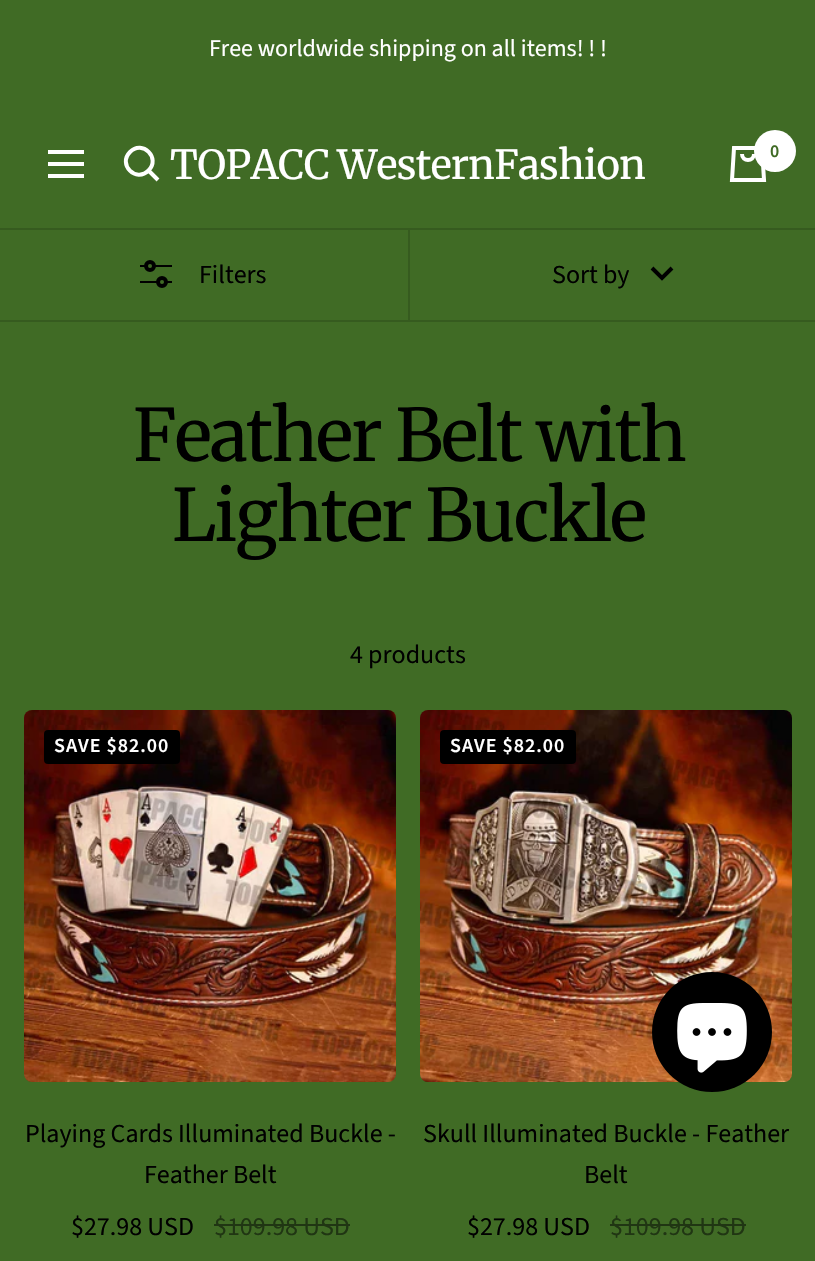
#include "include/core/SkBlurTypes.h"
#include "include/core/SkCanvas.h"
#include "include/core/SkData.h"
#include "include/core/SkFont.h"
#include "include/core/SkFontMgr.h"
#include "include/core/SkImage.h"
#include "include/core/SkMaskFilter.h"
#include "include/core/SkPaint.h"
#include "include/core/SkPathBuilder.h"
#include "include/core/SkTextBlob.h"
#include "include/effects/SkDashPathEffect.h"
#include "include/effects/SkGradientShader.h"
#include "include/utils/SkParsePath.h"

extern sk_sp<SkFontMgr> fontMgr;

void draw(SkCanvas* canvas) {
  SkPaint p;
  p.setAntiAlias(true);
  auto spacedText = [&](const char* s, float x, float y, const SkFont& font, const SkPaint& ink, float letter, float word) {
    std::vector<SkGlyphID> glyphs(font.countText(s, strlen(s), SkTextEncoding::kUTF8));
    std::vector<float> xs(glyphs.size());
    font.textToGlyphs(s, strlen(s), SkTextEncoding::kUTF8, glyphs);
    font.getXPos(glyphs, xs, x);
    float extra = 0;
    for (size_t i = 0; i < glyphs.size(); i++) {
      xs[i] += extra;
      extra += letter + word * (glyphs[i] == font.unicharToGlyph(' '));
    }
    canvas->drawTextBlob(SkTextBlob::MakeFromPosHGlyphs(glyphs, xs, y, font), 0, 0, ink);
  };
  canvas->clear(SkColorSetRGB(64, 107, 37));
  p.setStyle(SkPaint::kStroke_Style);
  p.setStrokeWidth(4);
  p.setColor(SK_ColorWHITE);
  canvas->drawPath(SkPathBuilder().moveTo(48, 152).lineTo(84, 152).moveTo(48, 176).lineTo(84, 176).close().moveTo(48, 164).lineTo(84, 164).close().detach(), p);
  canvas->drawPath(SkPathBuilder().moveTo(148.5f, 170.5f).cubicTo(161, 158, 142.5f, 139.5f, 130, 152).cubicTo(117.5f, 164.5f, 136, 183, 148.5f, 170.5f).close().moveTo(148.5f, 170.5f).lineTo(158, 180).detach(), p);
  canvas->drawPath(SkPathBuilder().moveTo(734, 148).lineTo(762, 148).lineTo(764, 180).lineTo(732, 180).close().moveTo(742, 154).cubicTo(742, 162, 754, 162, 754, 154).detach(), p);
  p.setStyle(SkPaint::kFill_Style);
  canvas->drawCircle(775, 151, 21, p);
  p.setColor(SkColorSetRGB(54, 91, 31));
  canvas->drawRect(SkRect::MakeLTRB(0, 228, 815, 230), p);
  canvas->drawRect(SkRect::MakeLTRB(0, 320, 815, 322), p);
  p.setStyle(SkPaint::kStroke_Style);
  p.setStrokeWidth(2);
  p.setColor(SK_ColorBLACK);
  canvas->drawPath(SkPathBuilder().moveTo(140, 266).lineTo(172, 266).moveTo(140, 282).lineTo(172, 282).detach(), p);
  p.setStyle(SkPaint::kFill_Style);
  p.setColor(SkColorSetRGB(64, 107, 37));
  canvas->drawCircle(150, 266, 4, p);
  p.setStyle(SkPaint::kStroke_Style);
  p.setStrokeWidth(4);
  p.setColor(SK_ColorBLACK);
  canvas->drawCircle(150, 266, 4, p);
  p.setStyle(SkPaint::kFill_Style);
  p.setColor(SkColorSetRGB(64, 107, 37));
  canvas->drawCircle(162, 282, 4, p);
  p.setStyle(SkPaint::kStroke_Style);
  p.setColor(SK_ColorBLACK);
  canvas->drawCircle(162, 282, 4, p);
  p.setStyle(SkPaint::kFill_Style);
  p.setColor(SkColorSetRGB(54, 91, 31));
  canvas->drawRect(SkRect::MakeLTRB(408, 228, 410, 322), p);
  p.setStyle(SkPaint::kStroke_Style);
  p.setColor(SK_ColorBLACK);
  canvas->drawPath(SkPathBuilder().moveTo(652, 268).lineTo(662, 278).lineTo(672, 268).detach(), p);
  canvas->drawImageRect(SkImages::DeferredFromEncodedData(SkData::MakeFromFileName("images/1.png")), SkRect::MakeLTRB(24, 710, 396, 1082), SkSamplingOptions());
  p.setStyle(SkPaint::kFill_Style);
  canvas->drawRoundRect(SkRect::MakeLTRB(44, 730, 180, 764), 4, 4, p);
  p.setColor(SkColorSetRGB(32, 54, 19));
  canvas->drawRect(SkRect::MakeLTRB(214, 1224, 350, 1226), p);
  canvas->drawImageRect(SkImages::DeferredFromEncodedData(SkData::MakeFromFileName("images/2.png")), SkRect::MakeLTRB(420, 710, 792, 1082), SkSamplingOptions());
  p.setColor(SK_ColorBLACK);
  canvas->drawRoundRect(SkRect::MakeLTRB(440, 730, 576, 764), 4, 4, p);
  p.setColor(SkColorSetRGB(32, 54, 19));
  canvas->drawRect(SkRect::MakeLTRB(610, 1224, 746, 1226), p);
  p.setColor(SK_ColorBLACK);
  canvas->drawCircle(712, 1032, 60, p);
  canvas->drawImageRect(SkImages::DeferredFromEncodedData(SkData::MakeFromFileName("images/3.png")), SkRect::MakeLTRB(677, 1003, 747, 1073), SkSamplingOptions());
  SkFont font1(fontMgr->matchFamilyStyle("Source Sans Pro", SkFontStyle::Normal()), 24);
  font1.setSubpixel(true);
  p.setColor(SK_ColorWHITE);
  canvas->drawString("Free worldwide shipping on all items! ! !", 209, 56, font1, p);
  SkFont font2(fontMgr->matchFamilyStyle("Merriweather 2", SkFontStyle::Normal()), 40);
  font2.setSubpixel(true);
  spacedText("TOPACC WesternFashion", 170, 179, font2, p, -0.6f, -1);
  SkFont font3(fontMgr->matchFamilyStyle("Source Sans Pro", SkFontStyle(600, SkFontStyle::kNormal_Width, SkFontStyle::kUpright_Slant)), 18);
  font3.setSubpixel(true);
  p.setColor(SkColorSetRGB(64, 107, 37));
  canvas->drawString("0", 770, 157, font3, p);
  SkFont font4(fontMgr->matchFamilyStyle("Source Sans Pro", SkFontStyle::Normal()), 26);
  font4.setSubpixel(true);
  p.setColor(SK_ColorBLACK);
  canvas->drawString("Filters", 199, 283, font4, p);
  canvas->drawString("Sort by", 552, 283, font4, p);
  SkFont font5(fontMgr->matchFamilyStyle("Merriweather", SkFontStyle::Normal()), 72);
  font5.setSubpixel(true);
  spacedText("Feather Belt with", 133, 461, font5, p, -1.75f, 0);
  spacedText("Lighter Buckle", 172, 541, font5, p, -1.75f, 0);
  canvas->drawString("4 products", 350, 663, font4, p);
  SkFont font6(fontMgr->matchFamilyStyle("Source Sans Pro", SkFontStyle(600, SkFontStyle::kNormal_Width, SkFontStyle::kUpright_Slant)), 20);
  font6.setSubpixel(true);
  p.setColor(SK_ColorWHITE);
  spacedText("SAVE $82.00", 54, 752, font6, p, 1, 0);
  p.setColor(SK_ColorBLACK);
  canvas->drawString("Playing Cards Illuminated Buckle -", 25, 1142, font4, p);
  canvas->drawString("Feather Belt", 144, 1183, font4, p);
  canvas->drawString("$27.98 USD", 71, 1235, font4, p);
  p.setColor(SkColorSetRGB(32, 54, 19));
  canvas->drawString("$109.98 USD", 214, 1235, font4, p);
  p.setColor(SK_ColorWHITE);
  spacedText("SAVE $82.00", 450, 752, font6, p, 1, 0);
  p.setColor(SK_ColorBLACK);
  canvas->drawString("Skull Illuminated Buckle - Feather", 423, 1142, font4, p);
  canvas->drawString("Belt", 584, 1183, font4, p);
  canvas->drawString("$27.98 USD", 467, 1235, font4, p);
  p.setColor(SkColorSetRGB(32, 54, 19));
  canvas->drawString("$109.98 USD", 610, 1235, font4, p);
}
